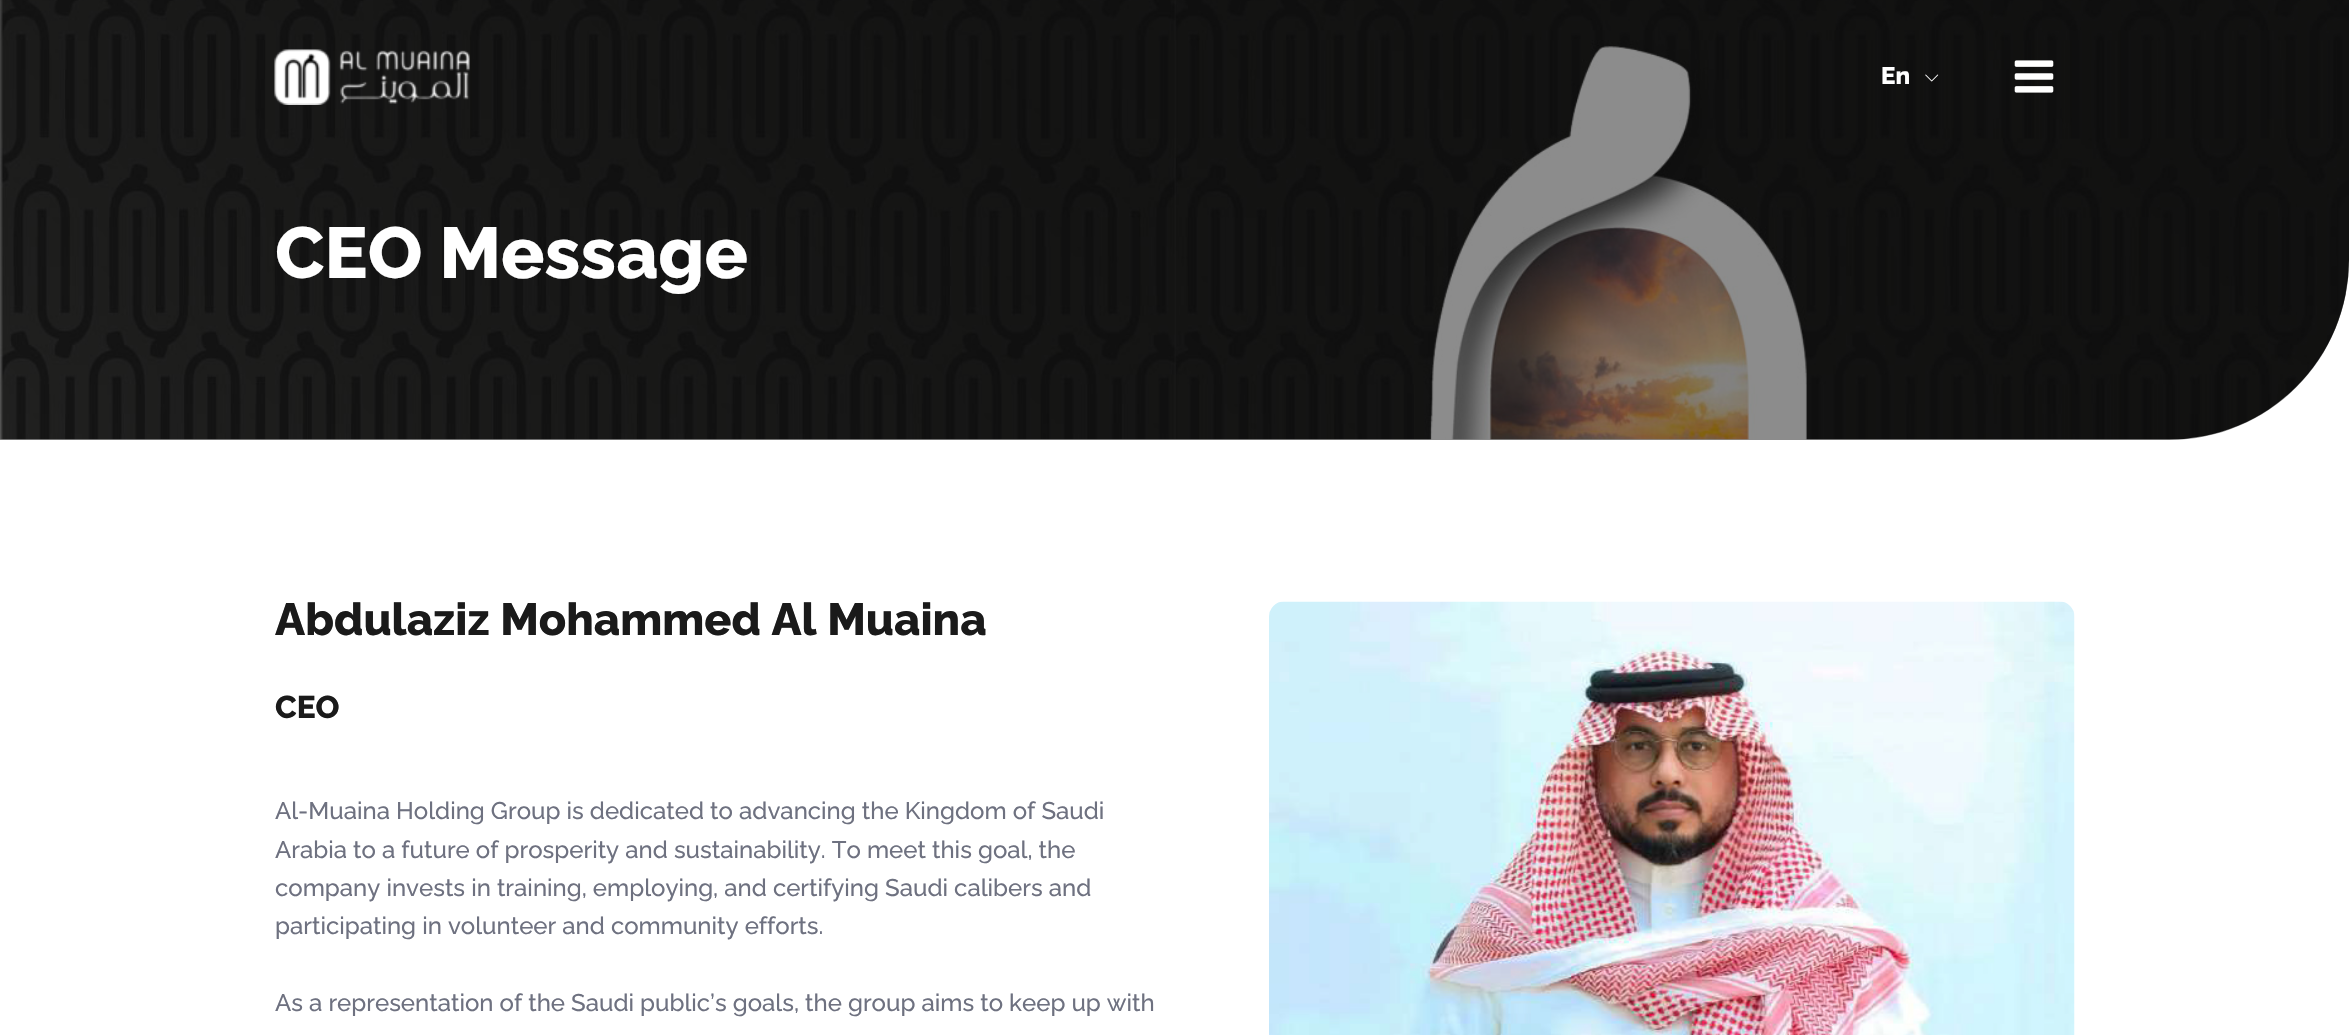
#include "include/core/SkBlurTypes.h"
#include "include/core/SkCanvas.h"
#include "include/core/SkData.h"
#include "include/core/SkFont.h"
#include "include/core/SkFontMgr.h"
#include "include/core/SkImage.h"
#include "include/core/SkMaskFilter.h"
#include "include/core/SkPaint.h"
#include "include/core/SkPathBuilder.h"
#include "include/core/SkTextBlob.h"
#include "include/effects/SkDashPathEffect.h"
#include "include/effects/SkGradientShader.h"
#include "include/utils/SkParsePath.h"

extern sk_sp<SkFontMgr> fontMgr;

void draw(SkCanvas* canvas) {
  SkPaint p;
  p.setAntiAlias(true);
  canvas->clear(SK_ColorWHITE);
  canvas->drawImageRect(SkImages::DeferredFromEncodedData(SkData::MakeFromFileName("images/4.png")), SkRect::MakeLTRB(0, 0, 2349, 440), SkSamplingOptions());
  p.setColor(SkColorSetARGB(128, 26, 26, 26));
  canvas->drawPath(SkPathBuilder().moveTo(0, 0).lineTo(2349, 0).lineTo(2349, 260).cubicTo(2349, 359.5f, 2268.5f, 440, 2169, 440).lineTo(0, 440).close().detach(), p);
  canvas->drawImageRect(SkImages::DeferredFromEncodedData(SkData::MakeFromFileName("images/1.png")), SkRect::MakeLTRB(274, 49, 470, 105), SkSamplingOptions());
  canvas->drawImageRect(SkImages::DeferredFromEncodedData(SkData::MakeFromFileName("images/2.png")), SkRect::MakeLTRB(1925, 74, 1939, 82), SkSamplingOptions());
  canvas->drawImageRect(SkImages::DeferredFromEncodedData(SkData::MakeFromFileName("images/3.png")), SkRect::MakeLTRB(2014, 60, 2054, 93), SkSamplingOptions());
  canvas->drawImageRect(SkImages::DeferredFromEncodedData(SkData::MakeFromFileName("images/5.png")), SkRect::MakeLTRB(1269, 601, 2075, 1035), SkSamplingOptions());
  SkFont font1(fontMgr->matchFamilyStyle("Raleway", SkFontStyle(800, SkFontStyle::kNormal_Width, SkFontStyle::kUpright_Slant)), 24);
  font1.setSubpixel(true);
  p.setColor(SK_ColorWHITE);
  canvas->drawString("En", 1881, 84, font1, p);
  SkFont font2(fontMgr->matchFamilyStyle("Raleway", SkFontStyle(800, SkFontStyle::kNormal_Width, SkFontStyle::kUpright_Slant)), 72);
  font2.setSubpixel(true);
  canvas->drawString("CEO Message", 275, 278, font2, p);
  SkFont font3(fontMgr->matchFamilyStyle("Raleway", SkFontStyle(800, SkFontStyle::kNormal_Width, SkFontStyle::kUpright_Slant)), 45);
  font3.setSubpixel(true);
  p.setColor(SkColorSetRGB(26, 26, 26));
  canvas->drawString("Abdulaziz Mohammed Al Muaina", 275, 635, font3, p);
  SkFont font4(fontMgr->matchFamilyStyle("Raleway", SkFontStyle(800, SkFontStyle::kNormal_Width, SkFontStyle::kUpright_Slant)), 31.5f);
  font4.setSubpixel(true);
  canvas->drawString("CEO", 275, 718, font4, p);
  SkFont font5(fontMgr->matchFamilyStyle("Raleway", SkFontStyle(500, SkFontStyle::kNormal_Width, SkFontStyle::kUpright_Slant)), 24);
  font5.setSubpixel(true);
  p.setColor(SkColorSetRGB(110, 113, 128));
  canvas->drawString("Al-Muaina Holding Group is dedicated to advancing the Kingdom of Saudi", 275, 819, font5, p);
  canvas->drawString("Arabia to a future of prosperity and sustainability. To meet this goal, the", 275, 858, font5, p);
  canvas->drawString("company invests in training, employing, and certifying Saudi calibers and", 275, 896, font5, p);
  canvas->drawString("participating in volunteer and community efforts.", 275, 934, font5, p);
  canvas->drawString("As a representation of the Saudi public’s goals, the group aims to keep up with", 275, 1011, font5, p);
}
